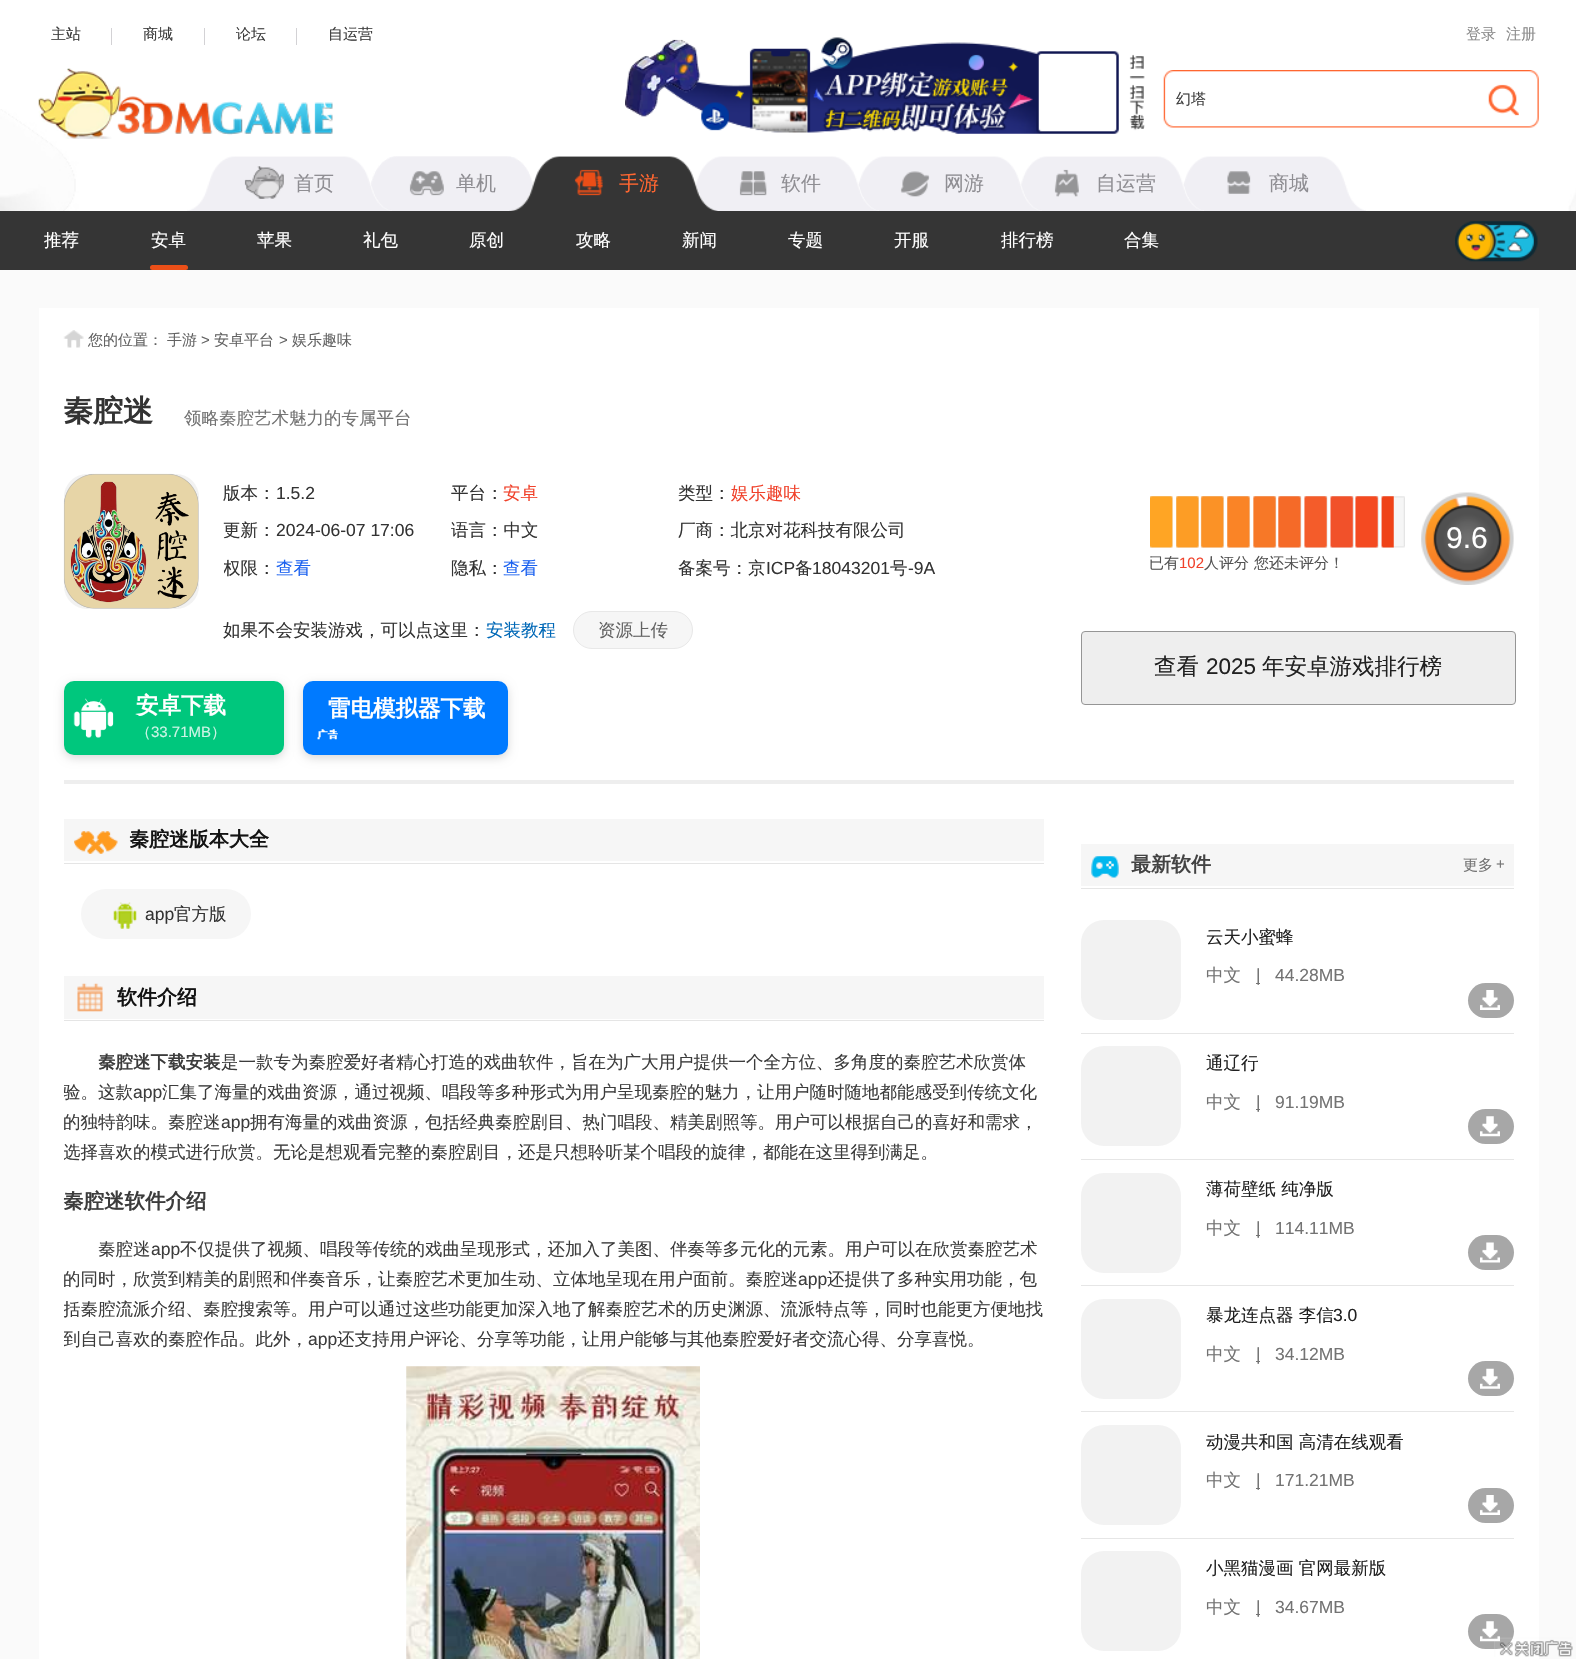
#include "include/core/SkBlurTypes.h"
#include "include/core/SkCanvas.h"
#include "include/core/SkData.h"
#include "include/core/SkFont.h"
#include "include/core/SkFontMgr.h"
#include "include/core/SkImage.h"
#include "include/core/SkMaskFilter.h"
#include "include/core/SkPaint.h"
#include "include/core/SkPathBuilder.h"
#include "include/core/SkTextBlob.h"
#include "include/effects/SkDashPathEffect.h"
#include "include/effects/SkGradientShader.h"
#include "include/utils/SkParsePath.h"

extern sk_sp<SkFontMgr> fontMgr;

void draw(SkCanvas* canvas) {
  SkPaint p;
  p.setAntiAlias(true);
  canvas->clear(SkColorSetRGB(250, 250, 250));
  p.setColor(SK_ColorWHITE);
  canvas->drawRect(SkRect::MakeLTRB(0, 0, 1576, 109), p);
  canvas->drawImageRect(SkImages::DeferredFromEncodedData(SkData::MakeFromFileName("images/1.png")), SkRect::MakeLTRB(0, 109, 1576, 211), SkSamplingOptions());
  p.setColor(SkColorSetRGB(211, 210, 213));
  canvas->drawRect(SkRect::MakeLTRB(111, 28, 112, 45), p);
  canvas->drawRect(SkRect::MakeLTRB(204, 28, 205, 45), p);
  canvas->drawRect(SkRect::MakeLTRB(296, 28, 297, 45), p);
  canvas->drawImageRect(SkImages::DeferredFromEncodedData(SkData::MakeFromFileName("images/2.png")), SkRect::MakeLTRB(38, 68, 333, 139), SkSamplingOptions());
  canvas->drawImageRect(SkImages::DeferredFromEncodedData(SkData::MakeFromFileName("images/3.png")), SkRect::MakeLTRB(625, 37, 1145, 134), SkSamplingOptions());
  canvas->drawImageRect(SkImages::DeferredFromEncodedData(SkData::MakeFromFileName("images/4.png")), SkRect::MakeLTRB(1163, 70, 1539, 128), SkSamplingOptions());
  canvas->drawImageRect(SkImages::DeferredFromEncodedData(SkData::MakeFromFileName("images/5.png")), SkRect::MakeLTRB(1488, 84, 1519, 116), SkSamplingOptions());
  canvas->drawImageRect(SkImages::DeferredFromEncodedData(SkData::MakeFromFileName("images/9.png")), SkRect::MakeLTRB(370, 156, 534, 188), SkSamplingOptions());
  canvas->drawImageRect(SkImages::DeferredFromEncodedData(SkData::MakeFromFileName("images/10.png")), SkRect::MakeLTRB(370, 156, 534, 211), SkSamplingOptions());
  canvas->drawImageRect(SkImages::DeferredFromEncodedData(SkData::MakeFromFileName("images/6.png")), SkRect::MakeLTRB(369, 184, 392, 211), SkSamplingOptions());
  canvas->drawImageRect(SkImages::DeferredFromEncodedData(SkData::MakeFromFileName("images/7.png")), SkRect::MakeLTRB(187, 156, 391, 211), SkSamplingOptions());
  canvas->drawImageRect(SkImages::DeferredFromEncodedData(SkData::MakeFromFileName("images/8.png")), SkRect::MakeLTRB(244, 166, 284, 199), SkSamplingOptions());
  canvas->drawImageRect(SkImages::DeferredFromEncodedData(SkData::MakeFromFileName("images/11.png")), SkRect::MakeLTRB(409, 171, 444, 196), SkSamplingOptions());
  canvas->drawImageRect(SkImages::DeferredFromEncodedData(SkData::MakeFromFileName("images/23.png")), SkRect::MakeLTRB(1182, 156, 1366, 211), SkSamplingOptions());
  canvas->drawImageRect(SkImages::DeferredFromEncodedData(SkData::MakeFromFileName("images/15.png")), SkRect::MakeLTRB(1182, 185, 1204, 211), SkSamplingOptions());
  canvas->drawImageRect(SkImages::DeferredFromEncodedData(SkData::MakeFromFileName("images/21.png")), SkRect::MakeLTRB(1020, 156, 1203, 211), SkSamplingOptions());
  canvas->drawImageRect(SkImages::DeferredFromEncodedData(SkData::MakeFromFileName("images/18.png")), SkRect::MakeLTRB(1019, 185, 1042, 211), SkSamplingOptions());
  canvas->drawImageRect(SkImages::DeferredFromEncodedData(SkData::MakeFromFileName("images/19.png")), SkRect::MakeLTRB(857, 156, 1041, 211), SkSamplingOptions());
  canvas->drawImageRect(SkImages::DeferredFromEncodedData(SkData::MakeFromFileName("images/15.png")), SkRect::MakeLTRB(857, 185, 879, 211), SkSamplingOptions());
  canvas->drawImageRect(SkImages::DeferredFromEncodedData(SkData::MakeFromFileName("images/16.png")), SkRect::MakeLTRB(695, 156, 878, 211), SkSamplingOptions());
  canvas->drawImageRect(SkImages::DeferredFromEncodedData(SkData::MakeFromFileName("images/12.png")), SkRect::MakeLTRB(512, 184, 717, 211), SkSamplingOptions());
  canvas->drawImageRect(SkImages::DeferredFromEncodedData(SkData::MakeFromFileName("images/13.png")), SkRect::MakeLTRB(509, 156, 718, 211), SkSamplingOptions());
  canvas->drawImageRect(SkImages::DeferredFromEncodedData(SkData::MakeFromFileName("images/14.png")), SkRect::MakeLTRB(574, 169, 603, 196), SkSamplingOptions());
  canvas->drawImageRect(SkImages::DeferredFromEncodedData(SkData::MakeFromFileName("images/17.png")), SkRect::MakeLTRB(739, 171, 767, 196), SkSamplingOptions());
  canvas->drawImageRect(SkImages::DeferredFromEncodedData(SkData::MakeFromFileName("images/20.png")), SkRect::MakeLTRB(900, 171, 930, 197), SkSamplingOptions());
  canvas->drawImageRect(SkImages::DeferredFromEncodedData(SkData::MakeFromFileName("images/22.png")), SkRect::MakeLTRB(1054, 169, 1079, 197), SkSamplingOptions());
  canvas->drawImageRect(SkImages::DeferredFromEncodedData(SkData::MakeFromFileName("images/24.png")), SkRect::MakeLTRB(1227, 171, 1251, 194), SkSamplingOptions());
  p.setColor(SkColorSetRGB(53, 53, 53));
  canvas->drawRect(SkRect::MakeLTRB(0, 211, 1576, 270), p);
  canvas->drawImageRect(SkImages::DeferredFromEncodedData(SkData::MakeFromFileName("images/25.png")), SkRect::MakeLTRB(1455, 221, 1538, 262), SkSamplingOptions());
  canvas->drawImageRect(SkImages::DeferredFromEncodedData(SkData::MakeFromFileName("images/26.png")), SkRect::MakeLTRB(1457, 222, 1506, 261), SkSamplingOptions());
  p.setColor(SkColorSetRGB(235, 79, 24));
  canvas->drawRoundRect(SkRect::MakeLTRB(150, 265, 188, 270), 2.5f, 2.5f, p);
  p.setColor(SK_ColorWHITE);
  canvas->drawRect(SkRect::MakeLTRB(39, 308, 1539, 1659), p);
  canvas->drawImageRect(SkImages::DeferredFromEncodedData(SkData::MakeFromFileName("images/27.png")), SkRect::MakeLTRB(63, 330, 84, 348), SkSamplingOptions());
  p.setColor(SkColorSetRGB(238, 238, 238));
  canvas->drawRect(SkRect::MakeLTRB(64, 780, 1514, 784), p);
  p.setColor(SkColorSetRGB(242, 242, 242));
  canvas->drawRoundRect(SkRect::MakeLTRB(64, 474, 199, 609), 23, 23, p);
  canvas->drawImageRect(SkImages::DeferredFromEncodedData(SkData::MakeFromFileName("images/28.png")), SkRect::MakeLTRB(63, 473, 199, 609), SkSamplingOptions());
  p.setColor(SkColorSetRGB(246, 246, 246));
  canvas->drawRoundRect(SkRect::MakeLTRB(573.5f, 611.5f, 692.5f, 648.5f), 18.5f, 18.5f, p);
  p.setStyle(SkPaint::kStroke_Style);
  p.setStrokeWidth(1);
  p.setColor(SkColorSetRGB(232, 232, 232));
  canvas->drawRoundRect(SkRect::MakeLTRB(573.5f, 611.5f, 692.5f, 648.5f), 18.5f, 18.5f, p);
  canvas->drawImageRect(SkImages::DeferredFromEncodedData(SkData::MakeFromFileName("images/29.png")), SkRect::MakeLTRB(1150, 496, 1405, 548), SkSamplingOptions());
  canvas->drawImageRect(SkImages::DeferredFromEncodedData(SkData::MakeFromFileName("images/30.png")), SkRect::MakeLTRB(1150, 496, 1394, 548), SkSamplingOptions());
  canvas->drawImageRect(SkImages::DeferredFromEncodedData(SkData::MakeFromFileName("images/31.png")), SkRect::MakeLTRB(1421, 492, 1514, 585), SkSamplingOptions());
  p.setStyle(SkPaint::kFill_Style);
  p.setColor(SkColorSetRGB(238, 238, 238));
  canvas->drawRoundRect(SkRect::MakeLTRB(1081.5f, 631.5f, 1515.5f, 704.5f), 3.5f, 3.5f, p);
  p.setStyle(SkPaint::kStroke_Style);
  p.setColor(SkColorSetRGB(149, 149, 149));
  canvas->drawRoundRect(SkRect::MakeLTRB(1081.5f, 631.5f, 1515.5f, 704.5f), 3.5f, 3.5f, p);
  p.setStyle(SkPaint::kFill_Style);
  p.setColor(SkColorSetARGB(38, 0, 0, 0));
  p.setMaskFilter(SkMaskFilter::MakeBlur(kNormal_SkBlurStyle, 5));
  canvas->drawRoundRect(SkRect::MakeLTRB(64, 684, 284, 758), 10, 10, p);
  p.setMaskFilter(nullptr);
  p.setColor(SkColorSetRGB(0, 199, 125));
  canvas->drawRoundRect(SkRect::MakeLTRB(64, 681, 284, 755), 10, 10, p);
  canvas->drawImageRect(SkImages::DeferredFromEncodedData(SkData::MakeFromFileName("images/32.png")), SkRect::MakeLTRB(73, 698, 114, 738), SkSamplingOptions());
  p.setColor(SkColorSetARGB(38, 0, 0, 0));
  p.setMaskFilter(SkMaskFilter::MakeBlur(kNormal_SkBlurStyle, 5));
  canvas->drawRoundRect(SkRect::MakeLTRB(303, 684, 508, 758), 10, 10, p);
  p.setMaskFilter(nullptr);
  p.setColor(SkColorSetRGB(0, 122, 255));
  canvas->drawRoundRect(SkRect::MakeLTRB(303, 681, 508, 755), 10, 10, p);
  canvas->drawImageRect(SkImages::DeferredFromEncodedData(SkData::MakeFromFileName("images/33.png")), SkRect::MakeLTRB(317, 729, 338, 740), SkSamplingOptions());
  p.setColor(SkColorSetRGB(246, 246, 246));
  canvas->drawRect(SkRect::MakeLTRB(64, 819, 1044, 861), p);
  canvas->drawImageRect(SkImages::DeferredFromEncodedData(SkData::MakeFromFileName("images/34.png")), SkRect::MakeLTRB(74, 831, 118, 854), SkSamplingOptions());
  p.setColor(SkColorSetRGB(229, 229, 229));
  canvas->drawRect(SkRect::MakeLTRB(64, 863, 1044, 864), p);
  p.setColor(SkColorSetRGB(246, 246, 246));
  canvas->drawRoundRect(SkRect::MakeLTRB(81, 889, 251, 939), 25, 25, p);
  canvas->drawImageRect(SkImages::DeferredFromEncodedData(SkData::MakeFromFileName("images/35.png")), SkRect::MakeLTRB(113, 902, 137, 929), SkSamplingOptions());
  canvas->drawRect(SkRect::MakeLTRB(64, 976, 1044, 1019), p);
  canvas->drawImageRect(SkImages::DeferredFromEncodedData(SkData::MakeFromFileName("images/36.png")), SkRect::MakeLTRB(77, 983, 103, 1012), SkSamplingOptions());
  p.setColor(SkColorSetRGB(229, 229, 229));
  canvas->drawRect(SkRect::MakeLTRB(64, 1020, 1044, 1021), p);
  canvas->drawImageRect(SkImages::DeferredFromEncodedData(SkData::MakeFromFileName("images/37.png")), SkRect::MakeLTRB(406, 1366, 700, 1659), SkSamplingOptions());
  p.setColor(SkColorSetRGB(246, 246, 246));
  canvas->drawRect(SkRect::MakeLTRB(1081, 844, 1514, 886), p);
  canvas->drawImageRect(SkImages::DeferredFromEncodedData(SkData::MakeFromFileName("images/38.png")), SkRect::MakeLTRB(1091, 856, 1119, 878), SkSamplingOptions());
  p.setColor(SkColorSetRGB(229, 229, 229));
  canvas->drawRect(SkRect::MakeLTRB(1081, 888, 1514, 889), p);
  p.setColor(SkColorSetRGB(230, 230, 230));
  canvas->drawRect(SkRect::MakeLTRB(1081, 1033, 1514, 1034), p);
  p.setColor(SkColorSetRGB(242, 242, 242));
  canvas->drawRoundRect(SkRect::MakeLTRB(1081, 920, 1181, 1020), 23, 23, p);
  p.setColor(SkColorSetRGB(115, 115, 115));
  canvas->drawRect(SkRect::MakeLTRB(1256, 983, 1260, 984), p);
  p.setColor(SkColorSetRGB(167, 167, 167));
  canvas->drawRoundRect(SkRect::MakeLTRB(1468, 983, 1514, 1018), 17.5f, 17.5f, p);
  canvas->drawImageRect(SkImages::DeferredFromEncodedData(SkData::MakeFromFileName("images/39.png")), SkRect::MakeLTRB(1480, 990, 1500, 1010), SkSamplingOptions());
  p.setColor(SkColorSetRGB(230, 230, 230));
  canvas->drawRect(SkRect::MakeLTRB(1081, 1159, 1514, 1160), p);
  p.setColor(SkColorSetRGB(242, 242, 242));
  canvas->drawRoundRect(SkRect::MakeLTRB(1081, 1046, 1181, 1146), 23, 23, p);
  p.setColor(SkColorSetRGB(115, 115, 115));
  canvas->drawRect(SkRect::MakeLTRB(1256, 1109, 1260, 1110), p);
  p.setColor(SkColorSetRGB(167, 167, 167));
  canvas->drawRoundRect(SkRect::MakeLTRB(1468, 1109, 1514, 1144), 17.5f, 17.5f, p);
  canvas->drawImageRect(SkImages::DeferredFromEncodedData(SkData::MakeFromFileName("images/40.png")), SkRect::MakeLTRB(1480, 1116, 1500, 1137), SkSamplingOptions());
  p.setColor(SkColorSetRGB(230, 230, 230));
  canvas->drawRect(SkRect::MakeLTRB(1081, 1285, 1514, 1286), p);
  p.setColor(SkColorSetRGB(242, 242, 242));
  canvas->drawRoundRect(SkRect::MakeLTRB(1081, 1173, 1181, 1273), 23, 23, p);
  p.setColor(SkColorSetRGB(115, 115, 115));
  canvas->drawRect(SkRect::MakeLTRB(1256, 1235, 1260, 1236), p);
  p.setColor(SkColorSetRGB(167, 167, 167));
  canvas->drawRoundRect(SkRect::MakeLTRB(1468, 1235, 1514, 1270), 17.5f, 17.5f, p);
  canvas->drawImageRect(SkImages::DeferredFromEncodedData(SkData::MakeFromFileName("images/41.png")), SkRect::MakeLTRB(1480, 1242, 1500, 1263), SkSamplingOptions());
  p.setColor(SkColorSetRGB(230, 230, 230));
  canvas->drawRect(SkRect::MakeLTRB(1081, 1411, 1514, 1412), p);
  p.setColor(SkColorSetRGB(242, 242, 242));
  canvas->drawRoundRect(SkRect::MakeLTRB(1081, 1299, 1181, 1399), 23, 23, p);
  p.setColor(SkColorSetRGB(115, 115, 115));
  canvas->drawRect(SkRect::MakeLTRB(1256, 1361, 1260, 1362), p);
  p.setColor(SkColorSetRGB(167, 167, 167));
  canvas->drawRoundRect(SkRect::MakeLTRB(1468, 1361, 1514, 1396), 17.5f, 17.5f, p);
  canvas->drawImageRect(SkImages::DeferredFromEncodedData(SkData::MakeFromFileName("images/42.png")), SkRect::MakeLTRB(1480, 1368, 1500, 1389), SkSamplingOptions());
  p.setColor(SkColorSetRGB(230, 230, 230));
  canvas->drawRect(SkRect::MakeLTRB(1081, 1538, 1514, 1539), p);
  p.setColor(SkColorSetRGB(242, 242, 242));
  canvas->drawRoundRect(SkRect::MakeLTRB(1081, 1425, 1181, 1525), 23, 23, p);
  p.setColor(SkColorSetRGB(115, 115, 115));
  canvas->drawRect(SkRect::MakeLTRB(1256, 1488, 1260, 1489), p);
  p.setColor(SkColorSetRGB(167, 167, 167));
  canvas->drawRoundRect(SkRect::MakeLTRB(1468, 1488, 1514, 1523), 17.5f, 17.5f, p);
  canvas->drawImageRect(SkImages::DeferredFromEncodedData(SkData::MakeFromFileName("images/39.png")), SkRect::MakeLTRB(1480, 1495, 1500, 1515), SkSamplingOptions());
  p.setColor(SkColorSetRGB(242, 242, 242));
  canvas->drawRoundRect(SkRect::MakeLTRB(1081, 1551, 1181, 1651), 23, 23, p);
  p.setColor(SkColorSetRGB(115, 115, 115));
  canvas->drawRect(SkRect::MakeLTRB(1256, 1614, 1260, 1615), p);
  p.setColor(SkColorSetRGB(167, 167, 167));
  canvas->drawRoundRect(SkRect::MakeLTRB(1468, 1614, 1514, 1649), 17.5f, 17.5f, p);
  canvas->drawImageRect(SkImages::DeferredFromEncodedData(SkData::MakeFromFileName("images/40.png")), SkRect::MakeLTRB(1480, 1621, 1500, 1642), SkSamplingOptions());
  canvas->drawImageRect(SkImages::DeferredFromEncodedData(SkData::MakeFromFileName("images/43.png")), SkRect::MakeLTRB(1494, 1637, 1573, 1657), SkSamplingOptions());
  SkFont font1(fontMgr->matchFamilyStyle("WenQuanYi Zen Hei", SkFontStyle(500, SkFontStyle::kNormal_Width, SkFontStyle::kUpright_Slant)), 15);
  font1.setSubpixel(true);
  p.setColor(SkColorSetRGB(60, 60, 60));
  canvas->drawString("主站", 51, 39, font1, p);
  canvas->drawString("商城", 143, 39, font1, p);
  canvas->drawString("论坛", 236, 39, font1, p);
  canvas->drawString("自运营", 328, 39, font1, p);
  p.setColor(SkColorSetRGB(138, 138, 138));
  canvas->drawString("登录", 1466, 39, font1, p);
  canvas->drawString("注册", 1506, 39, font1, p);
  p.setColor(SkColorSetRGB(60, 60, 60));
  canvas->drawString("幻塔", 1176, 104, font1, p);
  SkFont font2(fontMgr->matchFamilyStyle("WenQuanYi Zen Hei", SkFontStyle(500, SkFontStyle::kNormal_Width, SkFontStyle::kUpright_Slant)), 20);
  font2.setSubpixel(true);
  p.setColor(SkColorSetRGB(143, 142, 147));
  canvas->drawString("首页", 294, 190, font2, p);
  canvas->drawString("单机", 456, 190, font2, p);
  p.setColor(SkColorSetRGB(255, 102, 48));
  canvas->drawString("手游", 619, 190, font2, p);
  p.setColor(SkColorSetRGB(143, 142, 147));
  canvas->drawString("软件", 781, 190, font2, p);
  canvas->drawString("网游", 944, 190, font2, p);
  canvas->drawString("自运营", 1096, 190, font2, p);
  canvas->drawString("商城", 1269, 190, font2, p);
  SkFont font3(fontMgr->matchFamilyStyle("WenQuanYi Zen Hei", SkFontStyle(500, SkFontStyle::kNormal_Width, SkFontStyle::kUpright_Slant)), 17.5f);
  font3.setSubpixel(true);
  p.setColor(SK_ColorWHITE);
  canvas->drawString("推荐", 44, 246, font3, p);
  canvas->drawString("安卓", 151, 246, font3, p);
  canvas->drawString("苹果", 257, 246, font3, p);
  canvas->drawString("礼包", 363, 246, font3, p);
  canvas->drawString("原创", 469, 246, font3, p);
  canvas->drawString("攻略", 576, 246, font3, p);
  canvas->drawString("新闻", 682, 246, font3, p);
  canvas->drawString("专题", 788, 246, font3, p);
  canvas->drawString("开服", 894, 246, font3, p);
  canvas->drawString("排行榜", 1001, 246, font3, p);
  canvas->drawString("合集", 1124, 246, font3, p);
  p.setColor(SkColorSetRGB(98, 98, 98));
  canvas->drawString("您的位置：", 88, 345, font1, p);
  canvas->drawString("手游", 167, 345, font1, p);
  SkFont font4(fontMgr->matchFamilyStyle("Liberation Sans", SkFontStyle::Normal()), 15);
  font4.setSubpixel(true);
  canvas->drawString(">", 201, 345, font4, p);
  canvas->drawString("安卓平台", 214, 345, font1, p);
  canvas->drawString(">", 279, 345, font4, p);
  canvas->drawString("娱乐趣味", 292, 345, font1, p);
  SkFont font5(fontMgr->matchFamilyStyle("WenQuanYi Zen Hei", SkFontStyle::Bold()), 30);
  font5.setSubpixel(true);
  p.setColor(SkColorSetRGB(51, 51, 51));
  canvas->drawString("秦腔迷", 63, 421, font5, p);
  p.setColor(SkColorSetRGB(115, 115, 115));
  canvas->drawString("领略秦腔艺术魅力的专属平台", 184, 424, font3, p);
  p.setColor(SkColorSetRGB(51, 51, 51));
  canvas->drawString("版本：", 223, 499, font3, p);
  SkFont font6(fontMgr->matchFamilyStyle("Liberation Sans", SkFontStyle::Normal()), 17.5f);
  font6.setSubpixel(true);
  canvas->drawString("1.5.2", 276, 499, font6, p);
  canvas->drawString("平台：", 451, 499, font3, p);
  p.setColor(SkColorSetRGB(240, 65, 42));
  canvas->drawString("安卓", 503, 499, font3, p);
  p.setColor(SkColorSetRGB(51, 51, 51));
  canvas->drawString("类型：", 678, 499, font3, p);
  p.setColor(SkColorSetRGB(240, 65, 42));
  canvas->drawString("娱乐趣味", 731, 499, font3, p);
  p.setColor(SkColorSetRGB(51, 51, 51));
  canvas->drawString("更新：", 223, 536, font3, p);
  canvas->drawString("2024-06-07 17:06", 276, 536, font6, p);
  canvas->drawString("语言：中文", 451, 536, font3, p);
  canvas->drawString("厂商：北京对花科技有限公司", 678, 536, font3, p);
  canvas->save();
  canvas->clipRect(SkRect::MakeLTRB(224, 549, 426, 586));
  canvas->drawString("权限：", 223, 574, font3, p);
  canvas->restore();
  p.setColor(SkColorSetRGB(27, 97, 240));
  canvas->drawString("查看", 276, 574, font3, p);
  p.setColor(SkColorSetRGB(51, 51, 51));
  canvas->drawString("隐私：", 451, 574, font3, p);
  p.setColor(SkColorSetRGB(27, 97, 240));
  canvas->drawString("查看", 503, 574, font3, p);
  p.setColor(SkColorSetRGB(51, 51, 51));
  canvas->drawString("备案号：京", 678, 574, font3, p);
  canvas->drawString("ICP", 766, 574, font6, p);
  canvas->drawString("备", 795, 574, font3, p);
  canvas->drawString("18043201", 812, 574, font6, p);
  canvas->drawString("号", 890, 574, font3, p);
  canvas->drawString("-9A", 908, 574, font6, p);
  canvas->drawString("如果不会安装游戏，可以点这里：", 223, 636, font3, p);
  p.setColor(SkColorSetRGB(0, 104, 183));
  canvas->drawString("安装教程", 486, 636, font3, p);
  p.setColor(SkColorSetRGB(98, 98, 98));
  canvas->drawString("资源上传", 598, 636, font3, p);
  SkFont font7(fontMgr->matchFamilyStyle("Liberation Sans", SkFontStyle::Normal()), 30);
  font7.setSubpixel(true);
  p.setColor(SK_ColorWHITE);
  canvas->drawString("9.6", 1446, 548, font7, p);
  p.setColor(SkColorSetRGB(83, 83, 83));
  canvas->drawString("已有", 1149, 568, font1, p);
  p.setColor(SkColorSetRGB(240, 65, 42));
  canvas->drawString("102", 1179, 568, font4, p);
  p.setColor(SkColorSetRGB(83, 83, 83));
  canvas->drawString("人评分", 1204, 568, font1, p);
  canvas->drawString("您还未评分！", 1254, 568, font1, p);
  SkFont font8(fontMgr->matchFamilyStyle("WenQuanYi Zen Hei", SkFontStyle(500, SkFontStyle::kNormal_Width, SkFontStyle::kUpright_Slant)), 22.5f);
  font8.setSubpixel(true);
  p.setColor(SkColorSetRGB(33, 33, 33));
  canvas->drawString("查看", 1154, 674, font8, p);
  SkFont font9(fontMgr->matchFamilyStyle("Liberation Sans", SkFontStyle::Normal()), 22.5f);
  font9.setSubpixel(true);
  canvas->drawString("2025", 1206, 674, font9, p);
  canvas->drawString("年安卓游戏排行榜", 1262, 674, font8, p);
  SkFont font10(fontMgr->matchFamilyStyle("WenQuanYi Zen Hei", SkFontStyle::Bold()), 22.5f);
  font10.setSubpixel(true);
  p.setColor(SK_ColorWHITE);
  canvas->drawString("安卓下载", 136, 713, font10, p);
  p.setColor(SkColorSetRGB(204, 244, 229));
  canvas->drawString("（", 136, 737, font1, p);
  canvas->drawString("33.71MB", 151, 737, font4, p);
  canvas->drawString("）", 211, 737, font1, p);
  p.setColor(SK_ColorWHITE);
  canvas->drawString("雷电模拟器下载", 328, 716, font10, p);
  SkFont font11(fontMgr->matchFamilyStyle("WenQuanYi Zen Hei", SkFontStyle::Bold()), 20);
  font11.setSubpixel(true);
  p.setColor(SkColorSetRGB(19, 19, 19));
  canvas->drawString("秦腔迷版本大全", 129, 846, font11, p);
  p.setColor(SkColorSetRGB(51, 51, 51));
  canvas->drawString("app", 145, 920, font6, p);
  canvas->drawString("官方版", 174, 920, font3, p);
  p.setColor(SkColorSetRGB(19, 19, 19));
  canvas->drawString("软件介绍", 117, 1004, font11, p);
  SkFont font12(fontMgr->matchFamilyStyle("WenQuanYi Zen Hei", SkFontStyle::Bold()), 17.5f);
  font12.setSubpixel(true);
  p.setColor(SkColorSetRGB(60, 60, 60));
  canvas->drawString("秦腔迷下载安装", 98, 1068, font12, p);
  canvas->drawString("是一款专为秦腔爱好者精心打造的戏曲软件，旨在为广大用户提供一个全方位、多角度的秦腔艺术欣赏体", 221, 1068, font3, p);
  canvas->save();
  canvas->clipRect(SkRect::MakeLTRB(64, 1021, 1044, 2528));
  canvas->drawString("验。这款", 63, 1098, font3, p);
  canvas->restore();
  canvas->drawString("app", 133, 1098, font6, p);
  canvas->drawString("汇集了海量的戏曲资源，通过视频、唱段等多种形式为用户呈现秦腔的魅力，让用户随时随地都能感受到传统文化", 162, 1098, font3, p);
  canvas->drawString("的独特韵味。秦腔迷", 63, 1128, font3, p);
  canvas->drawString("app", 221, 1128, font6, p);
  canvas->drawString("拥有海量的戏曲资源，包括经典秦腔剧目、热门唱段、精美剧照等。用户可以根据自己的喜好和需求，", 250, 1128, font3, p);
  canvas->save();
  canvas->clipRect(SkRect::MakeLTRB(64, 1021, 1044, 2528));
  canvas->drawString("选择喜欢的模式进行欣赏。无论是想观看完整的秦腔剧目，还是只想聆听某个唱段的旋律，都能在这里得到满足。", 63, 1158, font3, p);
  canvas->restore();
  SkFont font13(fontMgr->matchFamilyStyle("WenQuanYi Zen Hei", SkFontStyle::Bold()), 20.5f);
  font13.setSubpixel(true);
  canvas->drawString("秦腔迷软件介绍", 63, 1208, font13, p);
  canvas->drawString("秦腔迷", 98, 1255, font3, p);
  canvas->drawString("app", 151, 1255, font6, p);
  canvas->drawString("不仅提供了视频、唱段等传统的戏曲呈现形式，还加入了美图、伴奏等多元化的元素。用户可以在欣赏秦腔艺术", 180, 1255, font3, p);
  canvas->drawString("的同时，欣赏到精美的剧照和伴奏音乐，让秦腔艺术更加生动、立体地呈现在用户面前。秦腔迷", 63, 1285, font3, p);
  canvas->drawString("app", 798, 1285, font6, p);
  canvas->drawString("还提供了多种实用功能，包", 827, 1285, font3, p);
  canvas->save();
  canvas->clipRect(SkRect::MakeLTRB(64, 1021, 1044, 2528));
  canvas->drawString("括秦腔流派介绍、秦腔搜索等。用户可以通过这些功能更加深入地了解秦腔艺术的历史渊源、流派特点等，同时也能更方便地找", 63, 1315, font3, p);
  canvas->drawString("到自己喜欢的秦腔作品。此外，", 63, 1345, font3, p);
  canvas->restore();
  canvas->drawString("app", 308, 1345, font6, p);
  canvas->drawString("还支持用户评论、分享等功能，让用户能够与其他秦腔爱好者交流心得、分享喜悦。", 337, 1345, font3, p);
  p.setColor(SkColorSetRGB(67, 67, 67));
  canvas->drawString("最新软件", 1131, 871, font11, p);
  p.setColor(SkColorSetRGB(115, 115, 115));
  canvas->drawString("更多", 1463, 870, font1, p);
  canvas->drawString("+", 1496, 869, font4, p);
  p.setColor(SkColorSetRGB(33, 33, 33));
  canvas->drawString("云天小蜜蜂", 1206, 943, font3, p);
  p.setColor(SkColorSetRGB(115, 115, 115));
  canvas->drawString("中文", 1206, 981, font3, p);
  canvas->drawString("|", 1256, 981, font6, p);
  canvas->drawString("44.28MB", 1275, 981, font6, p);
  p.setColor(SkColorSetRGB(33, 33, 33));
  canvas->drawString("通辽行", 1206, 1069, font3, p);
  p.setColor(SkColorSetRGB(115, 115, 115));
  canvas->drawString("中文", 1206, 1108, font3, p);
  canvas->drawString("|", 1256, 1108, font6, p);
  canvas->drawString("91.19MB", 1275, 1108, font6, p);
  p.setColor(SkColorSetRGB(33, 33, 33));
  canvas->drawString("薄荷壁纸 纯净版", 1206, 1195, font3, p);
  p.setColor(SkColorSetRGB(115, 115, 115));
  canvas->drawString("中文", 1206, 1234, font3, p);
  canvas->drawString("|", 1256, 1234, font6, p);
  canvas->drawString("114.11MB", 1275, 1234, font6, p);
  p.setColor(SkColorSetRGB(33, 33, 33));
  canvas->drawString("暴龙连点器 李信", 1206, 1321, font3, p);
  canvas->drawString("3.0", 1333, 1321, font6, p);
  p.setColor(SkColorSetRGB(115, 115, 115));
  canvas->drawString("中文", 1206, 1360, font3, p);
  canvas->drawString("|", 1256, 1360, font6, p);
  canvas->drawString("34.12MB", 1275, 1360, font6, p);
  p.setColor(SkColorSetRGB(33, 33, 33));
  canvas->drawString("动漫共和国 高清在线观看", 1206, 1448, font3, p);
  p.setColor(SkColorSetRGB(115, 115, 115));
  canvas->drawString("中文", 1206, 1486, font3, p);
  canvas->drawString("|", 1256, 1486, font6, p);
  canvas->drawString("171.21MB", 1275, 1486, font6, p);
  p.setColor(SkColorSetRGB(33, 33, 33));
  canvas->drawString("小黑猫漫画 官网最新版", 1206, 1574, font3, p);
  p.setColor(SkColorSetRGB(115, 115, 115));
  canvas->drawString("中文", 1206, 1613, font3, p);
  canvas->drawString("|", 1256, 1613, font6, p);
  canvas->drawString("34.67MB", 1275, 1613, font6, p);
}
